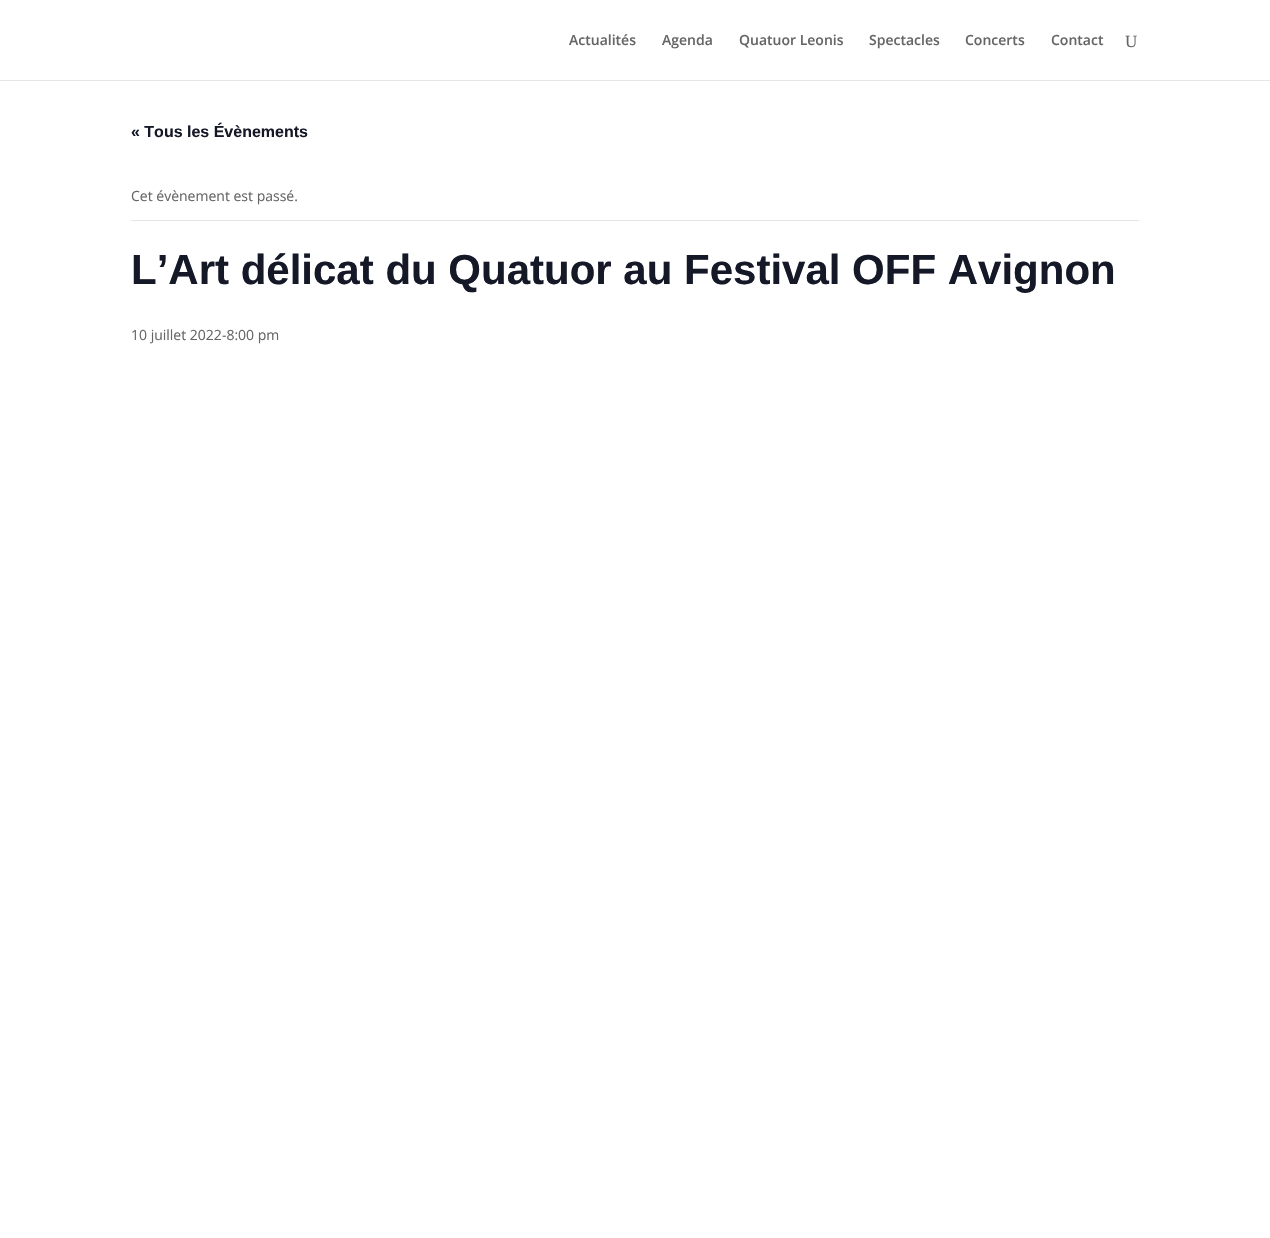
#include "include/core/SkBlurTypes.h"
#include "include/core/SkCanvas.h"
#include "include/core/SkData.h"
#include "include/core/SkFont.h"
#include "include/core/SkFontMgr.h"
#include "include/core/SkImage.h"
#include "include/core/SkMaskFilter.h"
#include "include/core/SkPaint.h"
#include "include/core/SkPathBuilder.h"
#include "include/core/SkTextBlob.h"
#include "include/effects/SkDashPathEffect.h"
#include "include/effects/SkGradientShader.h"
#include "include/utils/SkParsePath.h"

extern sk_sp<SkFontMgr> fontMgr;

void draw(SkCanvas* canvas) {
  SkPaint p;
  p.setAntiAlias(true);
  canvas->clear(SK_ColorWHITE);
  p.setColor(SkColorSetRGB(230, 230, 230));
  canvas->drawRect(SkRect::MakeLTRB(0, 80, 1270, 81), p);
  p.setColor(SkColorSetRGB(228, 228, 228));
  canvas->drawRect(SkRect::MakeLTRB(131, 220, 1139, 221), p);
  SkFont font1(fontMgr->matchFamilyStyle("Open Sans", SkFontStyle(600, SkFontStyle::kNormal_Width, SkFontStyle::kUpright_Slant)), 14);
  font1.setSubpixel(true);
  p.setColor(SkColorSetRGB(102, 102, 102));
  canvas->drawString("Actualités", 569, 45, font1, p);
  canvas->drawString("Agenda", 662, 45, font1, p);
  canvas->drawString("Quatuor Leonis", 739, 45, font1, p);
  canvas->drawString("Spectacles", 869, 45, font1, p);
  canvas->drawString("Concerts", 965, 45, font1, p);
  canvas->drawString("Contact", 1051, 45, font1, p);
  SkFont font2(fontMgr->matchFamilyStyle("Liberation Serif", SkFontStyle::Normal()), 17);
  font2.setSubpixel(true);
  canvas->drawString("U", 1125, 47, font2, p);
  SkFont font3(fontMgr->matchFamilyStyle("Liberation Sans", SkFontStyle::Bold()), 16);
  font3.setSubpixel(true);
  p.setColor(SkColorSetRGB(20, 24, 39));
  canvas->drawString("« Tous les Évènements", 131, 137, font3, p);
  SkFont font4(fontMgr->matchFamilyStyle("Open Sans", SkFontStyle::Normal()), 14);
  font4.setSubpixel(true);
  p.setColor(SkColorSetRGB(102, 102, 102));
  canvas->drawString("Cet évènement est passé.", 131, 201, font4, p);
  SkFont font5(fontMgr->matchFamilyStyle("Liberation Sans", SkFontStyle::Bold()), 42);
  font5.setSubpixel(true);
  p.setColor(SkColorSetRGB(20, 24, 39));
  canvas->drawString("L’Art délicat du Quatuor au Festival OFF Avignon", 131, 284, font5, p);
  p.setColor(SkColorSetRGB(102, 102, 102));
  canvas->drawString("10 juillet 2022-8:00 pm", 131, 340, font4, p);
}
